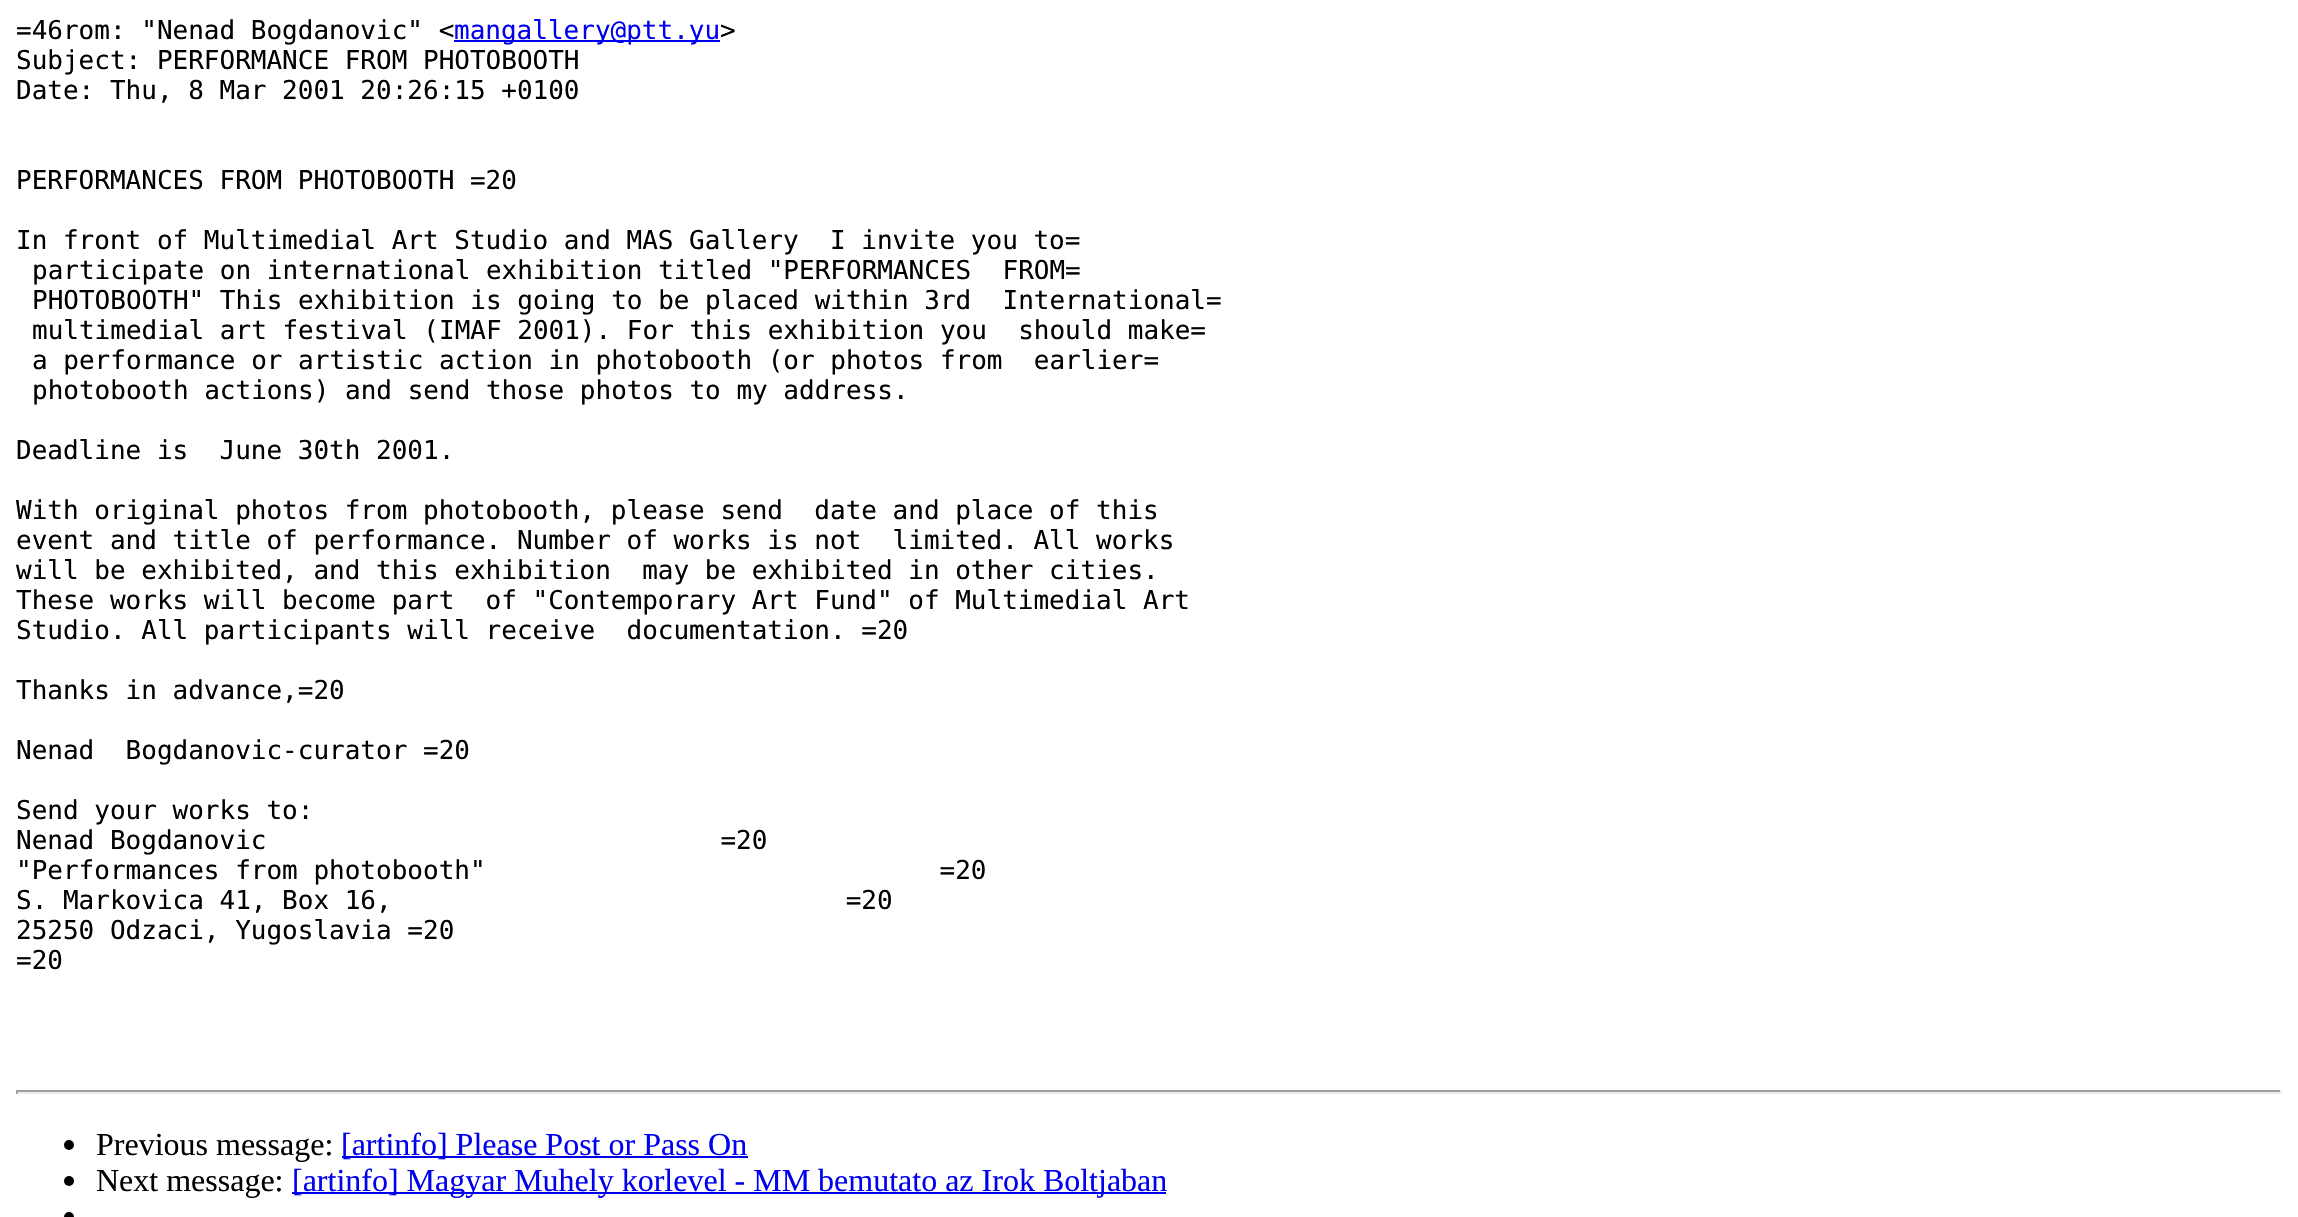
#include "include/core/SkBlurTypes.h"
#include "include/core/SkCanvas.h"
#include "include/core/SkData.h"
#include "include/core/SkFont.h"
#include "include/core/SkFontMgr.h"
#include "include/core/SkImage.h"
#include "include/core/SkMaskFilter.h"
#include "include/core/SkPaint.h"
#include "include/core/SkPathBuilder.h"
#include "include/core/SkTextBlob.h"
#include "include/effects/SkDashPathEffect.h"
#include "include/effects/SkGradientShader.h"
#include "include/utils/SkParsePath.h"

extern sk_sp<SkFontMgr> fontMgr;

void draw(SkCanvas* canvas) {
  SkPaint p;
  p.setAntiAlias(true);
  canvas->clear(SK_ColorWHITE);
  p.setColor(SkColorSetRGB(0, 0, 238));
  canvas->drawRect(SkRect::MakeLTRB(454, 40, 720, 42), p);
  p.setColor(SkColorSetRGB(159, 159, 159));
  canvas->drawRect(SkRect::MakeLTRB(16, 1090, 2282, 1092), p);
  p.setColor(SkColorSetRGB(238, 238, 238));
  canvas->drawRect(SkRect::MakeLTRB(2280, 1090, 2282, 1094), p);
  canvas->drawRect(SkRect::MakeLTRB(16, 1092, 2282, 1094), p);
  p.setColor(SkColorSetRGB(159, 159, 159));
  canvas->drawRect(SkRect::MakeLTRB(16, 1090, 18, 1094), p);
  p.setColor(SK_ColorBLACK);
  canvas->drawCircle(69, 1145, 5, p);
  p.setColor(SkColorSetRGB(0, 0, 238));
  canvas->drawRect(SkRect::MakeLTRB(342, 1156, 748, 1158), p);
  p.setColor(SK_ColorBLACK);
  canvas->drawCircle(69, 1181, 5, p);
  p.setColor(SkColorSetRGB(0, 0, 238));
  canvas->drawRect(SkRect::MakeLTRB(292, 1192, 1166, 1194), p);
  p.setColor(SK_ColorBLACK);
  canvas->drawCircle(69, 1217, 5, p);
  SkFont font1(fontMgr->matchFamilyStyle("DejaVu Sans Mono", SkFontStyle::Normal()), 26);
  font1.setSubpixel(true);
  canvas->drawString("=46rom: \"Nenad Bogdanovic\" <", 16, 39, font1, p);
  p.setColor(SkColorSetRGB(0, 0, 238));
  canvas->drawString("mangallery@ptt.yu", 454, 39, font1, p);
  p.setColor(SK_ColorBLACK);
  canvas->drawString(">", 720, 39, font1, p);
  canvas->drawString("Subject: PERFORMANCE FROM PHOTOBOOTH", 16, 69, font1, p);
  canvas->drawString("Date: Thu, 8 Mar 2001 20:26:15 +0100", 16, 99, font1, p);
  canvas->drawString("PERFORMANCES FROM PHOTOBOOTH =20", 16, 189, font1, p);
  canvas->drawString("In front of Multimedial Art Studio and MAS Gallery  I invite you to=", 16, 249, font1, p);
  canvas->drawString("participate on international exhibition titled \"PERFORMANCES  FROM=", 32, 279, font1, p);
  canvas->drawString("PHOTOBOOTH\" This exhibition is going to be placed within 3rd  International=", 32, 309, font1, p);
  canvas->drawString("multimedial art festival (IMAF 2001). For this exhibition you  should make=", 32, 339, font1, p);
  canvas->drawString("a performance or artistic action in photobooth (or photos from  earlier=", 32, 369, font1, p);
  canvas->drawString("photobooth actions) and send those photos to my address.", 32, 399, font1, p);
  canvas->drawString("Deadline is  June 30th 2001.", 16, 459, font1, p);
  canvas->drawString("With original photos from photobooth, please send  date and place of this", 16, 519, font1, p);
  canvas->drawString("event and title of performance. Number of works is not  limited. All works", 16, 549, font1, p);
  canvas->drawString("will be exhibited, and this exhibition  may be exhibited in other cities.", 16, 579, font1, p);
  canvas->drawString("These works will become part  of \"Contemporary Art Fund\" of Multimedial Art", 16, 609, font1, p);
  canvas->drawString("Studio. All participants will receive  documentation. =20", 16, 639, font1, p);
  canvas->drawString("Thanks in advance,=20", 16, 699, font1, p);
  canvas->drawString("Nenad  Bogdanovic-curator =20", 16, 759, font1, p);
  canvas->drawString("Send your works to:", 16, 819, font1, p);
  canvas->drawString("Nenad Bogdanovic                             =20", 16, 849, font1, p);
  canvas->drawString("\"Performances from photobooth\"                             =20", 16, 879, font1, p);
  canvas->drawString("S. Markovica 41, Box 16,                             =20", 16, 909, font1, p);
  canvas->drawString("25250 Odzaci, Yugoslavia =20", 16, 939, font1, p);
  canvas->drawString("=20", 16, 969, font1, p);
  SkFont font2(fontMgr->matchFamilyStyle("Liberation Serif", SkFontStyle::Normal()), 32);
  font2.setSubpixel(true);
  canvas->drawString("Previous message:", 96, 1155, font2, p);
  p.setColor(SkColorSetRGB(0, 0, 238));
  canvas->drawString("[artinfo] Please Post or Pass On", 341, 1155, font2, p);
  p.setColor(SK_ColorBLACK);
  canvas->drawString("Next message:", 96, 1191, font2, p);
  p.setColor(SkColorSetRGB(0, 0, 238));
  canvas->drawString("[artinfo] Magyar Muhely korlevel - MM bemutato az Irok Boltjaban", 292, 1191, font2, p);
}
